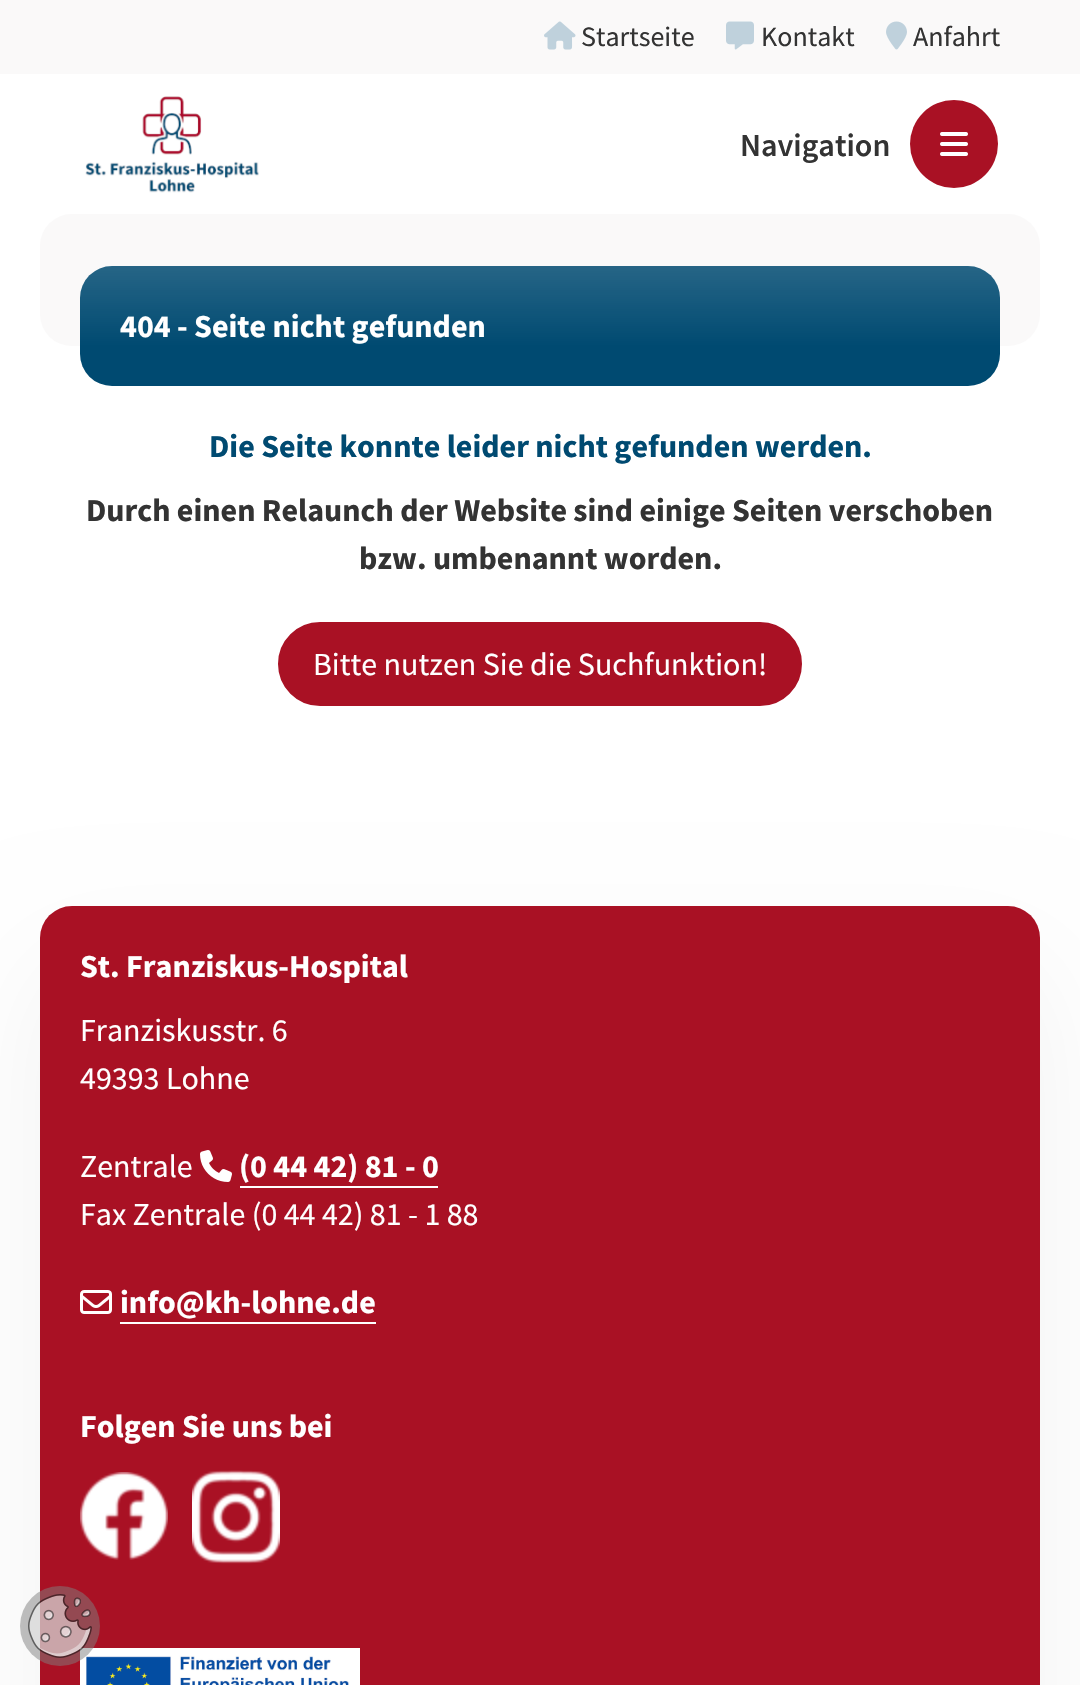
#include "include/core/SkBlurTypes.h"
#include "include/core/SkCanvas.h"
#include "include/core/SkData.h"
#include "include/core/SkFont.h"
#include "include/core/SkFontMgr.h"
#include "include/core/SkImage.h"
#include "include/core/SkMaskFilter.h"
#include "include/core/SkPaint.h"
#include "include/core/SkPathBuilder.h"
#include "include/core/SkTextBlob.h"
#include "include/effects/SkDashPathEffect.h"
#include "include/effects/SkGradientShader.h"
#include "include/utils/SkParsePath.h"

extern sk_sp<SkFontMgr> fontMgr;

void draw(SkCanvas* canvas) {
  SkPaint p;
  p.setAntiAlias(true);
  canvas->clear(SK_ColorWHITE);
  p.setColor(SkColorSetRGB(250, 249, 249));
  canvas->drawRect(SkRect::MakeLTRB(0, 0, 1080, 74), p);
  canvas->drawImageRect(SkImages::DeferredFromEncodedData(SkData::MakeFromFileName("images/1.png")), SkRect::MakeLTRB(544, 21, 576, 50), SkSamplingOptions());
  canvas->drawImageRect(SkImages::DeferredFromEncodedData(SkData::MakeFromFileName("images/2.png")), SkRect::MakeLTRB(726, 21, 754, 50), SkSamplingOptions());
  canvas->drawImageRect(SkImages::DeferredFromEncodedData(SkData::MakeFromFileName("images/3.png")), SkRect::MakeLTRB(886, 21, 907, 50), SkSamplingOptions());
  canvas->drawImageRect(SkImages::DeferredFromEncodedData(SkData::MakeFromFileName("images/4.png")), SkRect::MakeLTRB(85, 96, 259, 193), SkSamplingOptions());
  p.setColor(SkColorSetRGB(169, 17, 36));
  canvas->drawCircle(954, 144, 44, p);
  canvas->drawImageRect(SkImages::DeferredFromEncodedData(SkData::MakeFromFileName("images/5.png")), SkRect::MakeLTRB(940, 132, 968, 156), SkSamplingOptions());
  p.setColor(SkColorSetRGB(250, 249, 249));
  canvas->drawRoundRect(SkRect::MakeLTRB(40, 214, 1040, 346), 32, 32, p);
  {
    const SkColor colors[] = {SkColorSetRGB(0, 74, 113), SkColorSetRGB(0, 74, 113), SkColorSetARGB(217, 0, 74, 113)};
    const float stops[] = {0, 0.33f, 1};
    const SkPoint ends[] = {{540, 386}, {540, 266}};
    p.setShader(SkGradientShader::MakeLinear(ends, colors, stops, 3, SkTileMode::kClamp));
    p.setAlpha(255);
  }
  canvas->drawRoundRect(SkRect::MakeLTRB(80, 266, 1000, 386), 32, 32, p);
  p.setShader(nullptr);
  p.setColor(SkColorSetRGB(169, 17, 36));
  canvas->drawRoundRect(SkRect::MakeLTRB(279, 623, 801, 705), 41, 41, p);
  p.setStyle(SkPaint::kStroke_Style);
  p.setStrokeWidth(2);
  canvas->drawRoundRect(SkRect::MakeLTRB(279, 623, 801, 705), 41, 41, p);
  p.setStyle(SkPaint::kFill_Style);
  p.setColor(SkColorSetARGB(13, 0, 0, 0));
  p.setMaskFilter(SkMaskFilter::MakeBlur(kNormal_SkBlurStyle, 60));
  canvas->drawRoundRect(SkRect::MakeLTRB(40, 966, 1040, 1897), 32, 32, p);
  p.setMaskFilter(nullptr);
  p.setColor(SkColorSetRGB(169, 17, 36));
  canvas->drawRoundRect(SkRect::MakeLTRB(40, 906, 1040, 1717), 32, 32, p);
  canvas->drawImageRect(SkImages::DeferredFromEncodedData(SkData::MakeFromFileName("images/6.png")), SkRect::MakeLTRB(200, 1150, 232, 1182), SkSamplingOptions());
  p.setColor(SK_ColorWHITE);
  canvas->drawRect(SkRect::MakeLTRB(240, 1186, 438, 1188), p);
  canvas->drawImageRect(SkImages::DeferredFromEncodedData(SkData::MakeFromFileName("images/7.png")), SkRect::MakeLTRB(80, 1290, 112, 1314), SkSamplingOptions());
  canvas->drawRect(SkRect::MakeLTRB(120, 1322, 376, 1324), p);
  canvas->drawImageRect(SkImages::DeferredFromEncodedData(SkData::MakeFromFileName("images/8.png")), SkRect::MakeLTRB(80, 1472, 168, 1560), SkSamplingOptions());
  canvas->drawImageRect(SkImages::DeferredFromEncodedData(SkData::MakeFromFileName("images/9.png")), SkRect::MakeLTRB(192, 1470, 280, 1564), SkSamplingOptions());
  canvas->drawImageRect(SkImages::DeferredFromEncodedData(SkData::MakeFromFileName("images/10.png")), SkRect::MakeLTRB(80, 1648, 360, 1685), SkSamplingOptions());
  p.setColor(SkColorSetARGB(128, 128, 128, 128));
  canvas->drawCircle(60, 1626, 40, p);
  canvas->drawImageRect(SkImages::DeferredFromEncodedData(SkData::MakeFromFileName("images/11.png")), SkRect::MakeLTRB(28, 1594, 92, 1658), SkSamplingOptions());
  SkFont font1(fontMgr->matchFamilyStyle("Source Sans Pro", SkFontStyle::Normal()), 28);
  font1.setSubpixel(true);
  p.setColor(SkColorSetRGB(51, 51, 51));
  canvas->drawString("Startseite", 581, 46, font1, p);
  canvas->drawString("Kontakt", 761, 46, font1, p);
  canvas->drawString("Anfahrt", 913, 46, font1, p);
  SkFont font2(fontMgr->matchFamilyStyle("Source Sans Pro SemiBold", SkFontStyle(600, SkFontStyle::kNormal_Width, SkFontStyle::kUpright_Slant)), 32);
  font2.setSubpixel(true);
  canvas->drawString("Navigation", 740, 156, font2, p);
  SkFont font3(fontMgr->matchFamilyStyle("Source Sans Pro", SkFontStyle::Bold()), 32);
  font3.setSubpixel(true);
  p.setColor(SK_ColorWHITE);
  canvas->drawString("404 - Seite nicht gefunden", 120, 337, font3, p);
  p.setColor(SkColorSetRGB(0, 74, 113));
  canvas->drawString("Die Seite konnte leider nicht gefunden werden.", 209, 457, font3, p);
  p.setColor(SkColorSetRGB(51, 51, 51));
  canvas->drawString("Durch einen Relaunch der Website sind einige Seiten verschoben", 86, 521, font3, p);
  canvas->drawString("bzw. umbenannt worden.", 359, 569, font3, p);
  SkFont font4(fontMgr->matchFamilyStyle("Source Sans Pro", SkFontStyle::Normal()), 32);
  font4.setSubpixel(true);
  p.setColor(SK_ColorWHITE);
  canvas->drawString("Bitte nutzen Sie die Suchfunktion!", 313, 675, font4, p);
  canvas->drawString("St. Franziskus-Hospital", 80, 977, font3, p);
  canvas->drawString("Franziskusstr. 6", 80, 1041, font4, p);
  canvas->drawString("49393 Lohne", 80, 1089, font4, p);
  canvas->drawString("Zentrale", 80, 1177, font4, p);
  canvas->drawString("(0 44 42) 81 - 0", 239, 1177, font3, p);
  canvas->drawString("Fax Zentrale (0 44 42) 81 - 1 88", 80, 1225, font4, p);
  canvas->drawString("info@kh-lohne.de", 120, 1313, font3, p);
  canvas->drawString("Folgen Sie uns bei", 80, 1437, font3, p);
}
